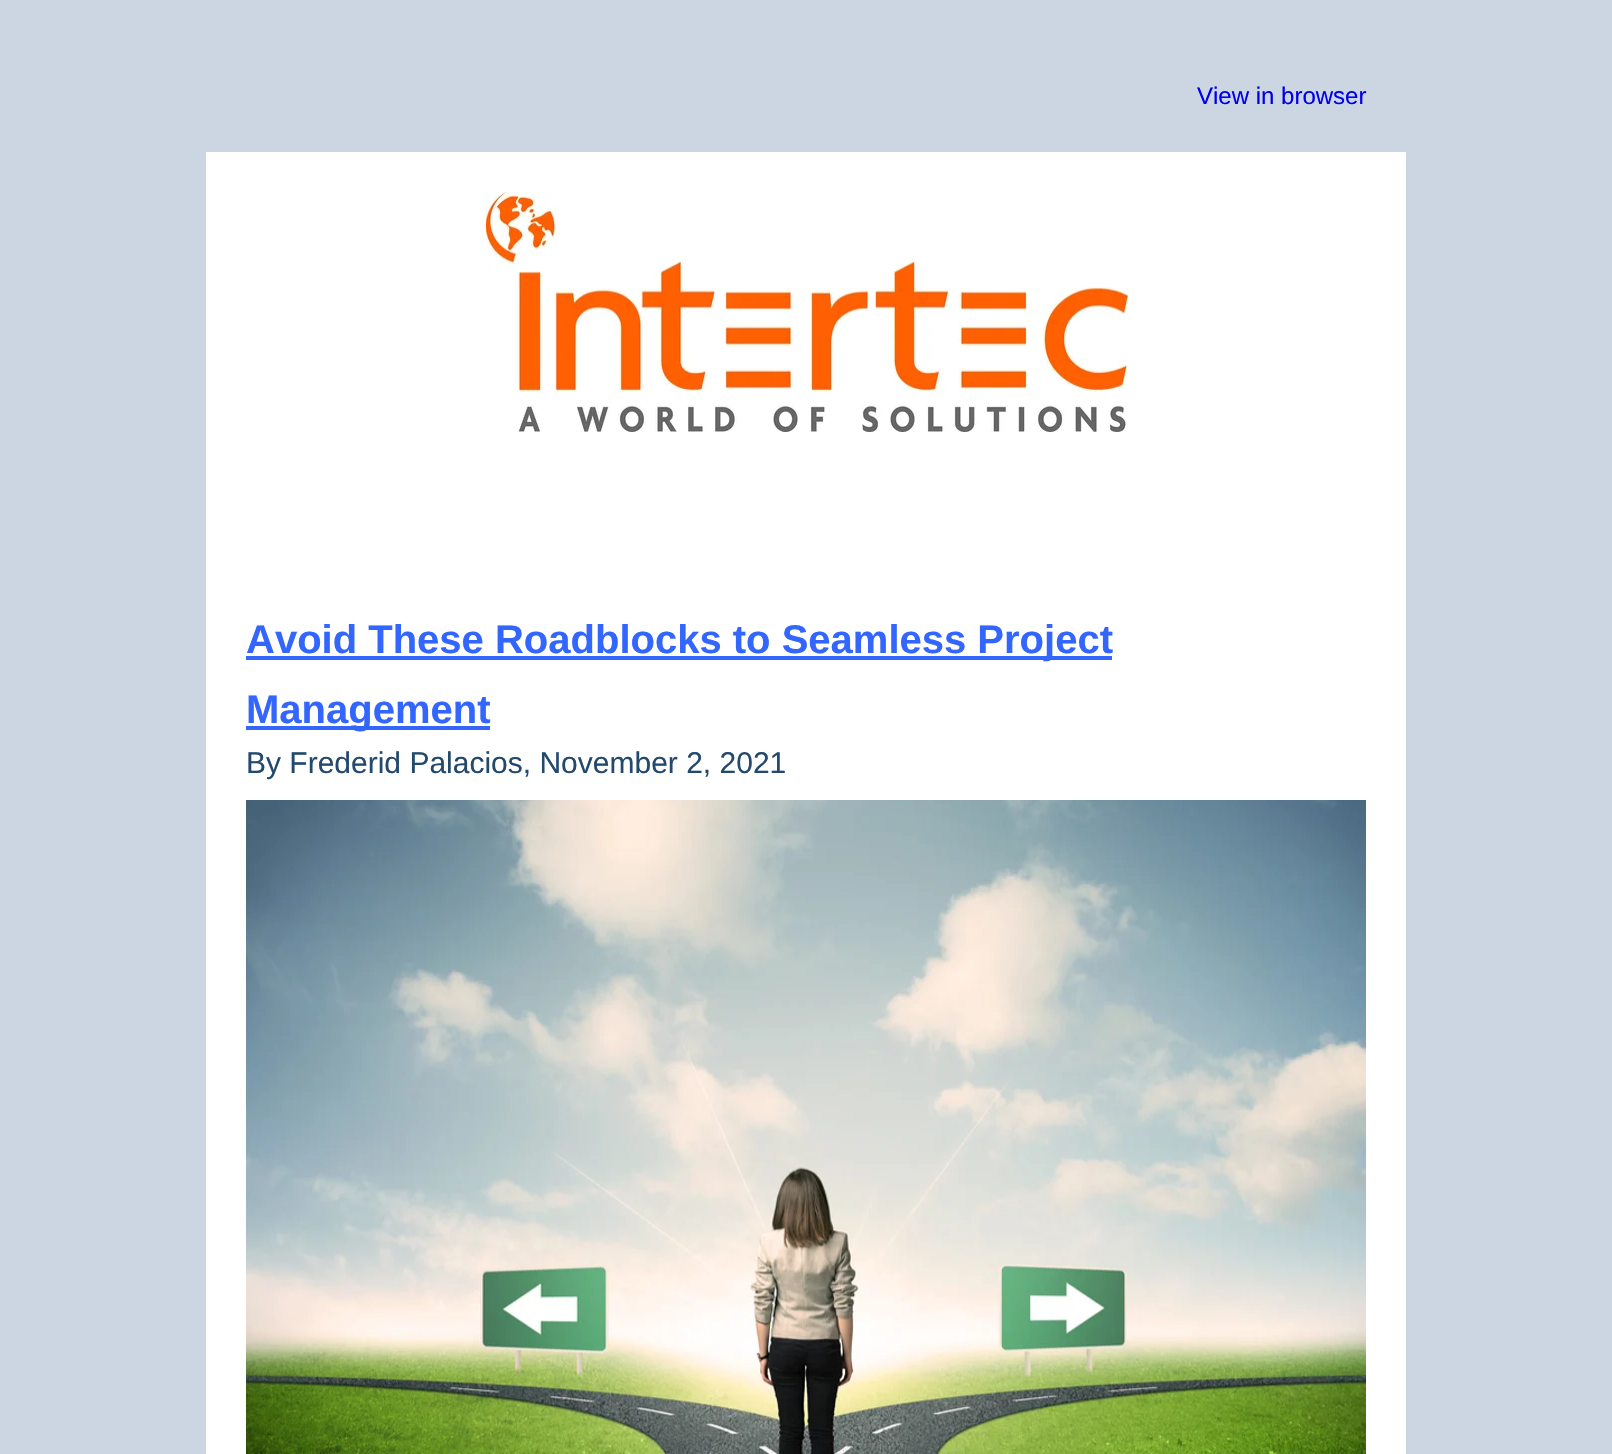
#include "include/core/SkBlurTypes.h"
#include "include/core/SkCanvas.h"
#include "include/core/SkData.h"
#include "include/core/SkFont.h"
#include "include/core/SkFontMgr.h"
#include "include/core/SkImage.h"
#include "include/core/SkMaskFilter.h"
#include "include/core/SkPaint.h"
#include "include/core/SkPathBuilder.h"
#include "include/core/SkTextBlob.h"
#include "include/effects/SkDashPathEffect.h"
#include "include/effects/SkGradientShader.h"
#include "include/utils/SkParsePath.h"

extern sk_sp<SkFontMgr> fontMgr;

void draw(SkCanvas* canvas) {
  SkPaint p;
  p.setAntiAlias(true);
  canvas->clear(SkColorSetRGB(203, 214, 226));
  p.setColor(SK_ColorWHITE);
  canvas->drawRect(SkRect::MakeLTRB(206, 152, 1406, 1454), p);
  canvas->drawImageRect(SkImages::DeferredFromEncodedData(SkData::MakeFromFileName("images/1.png")), SkRect::MakeLTRB(486, 192, 1128, 432), SkSamplingOptions());
  p.setColor(SkColorSetRGB(51, 102, 255));
  canvas->drawRect(SkRect::MakeLTRB(246, 656, 1112, 660), p);
  canvas->drawRect(SkRect::MakeLTRB(246, 726, 490, 730), p);
  canvas->drawImageRect(SkImages::DeferredFromEncodedData(SkData::MakeFromFileName("images/2.png")), SkRect::MakeLTRB(246, 800, 1366, 1454), SkSamplingOptions());
  SkFont font1(fontMgr->matchFamilyStyle("Liberation Sans", SkFontStyle::Normal()), 24);
  font1.setSubpixel(true);
  p.setColor(SkColorSetRGB(0, 0, 238));
  canvas->drawString("View in browser", 1197, 104, font1, p);
  SkFont font2(fontMgr->matchFamilyStyle("Liberation Sans", SkFontStyle::Bold()), 40);
  font2.setSubpixel(true);
  p.setColor(SkColorSetRGB(51, 102, 255));
  canvas->drawString("Avoid These Roadblocks to Seamless Project", 246, 653, font2, p);
  canvas->drawString("Management", 246, 723, font2, p);
  SkFont font3(fontMgr->matchFamilyStyle("Liberation Sans", SkFontStyle::Normal()), 30);
  font3.setSubpixel(true);
  p.setColor(SkColorSetRGB(35, 73, 109));
  canvas->drawString("By Frederid Palacios, November 2, 2021", 246, 773, font3, p);
}
